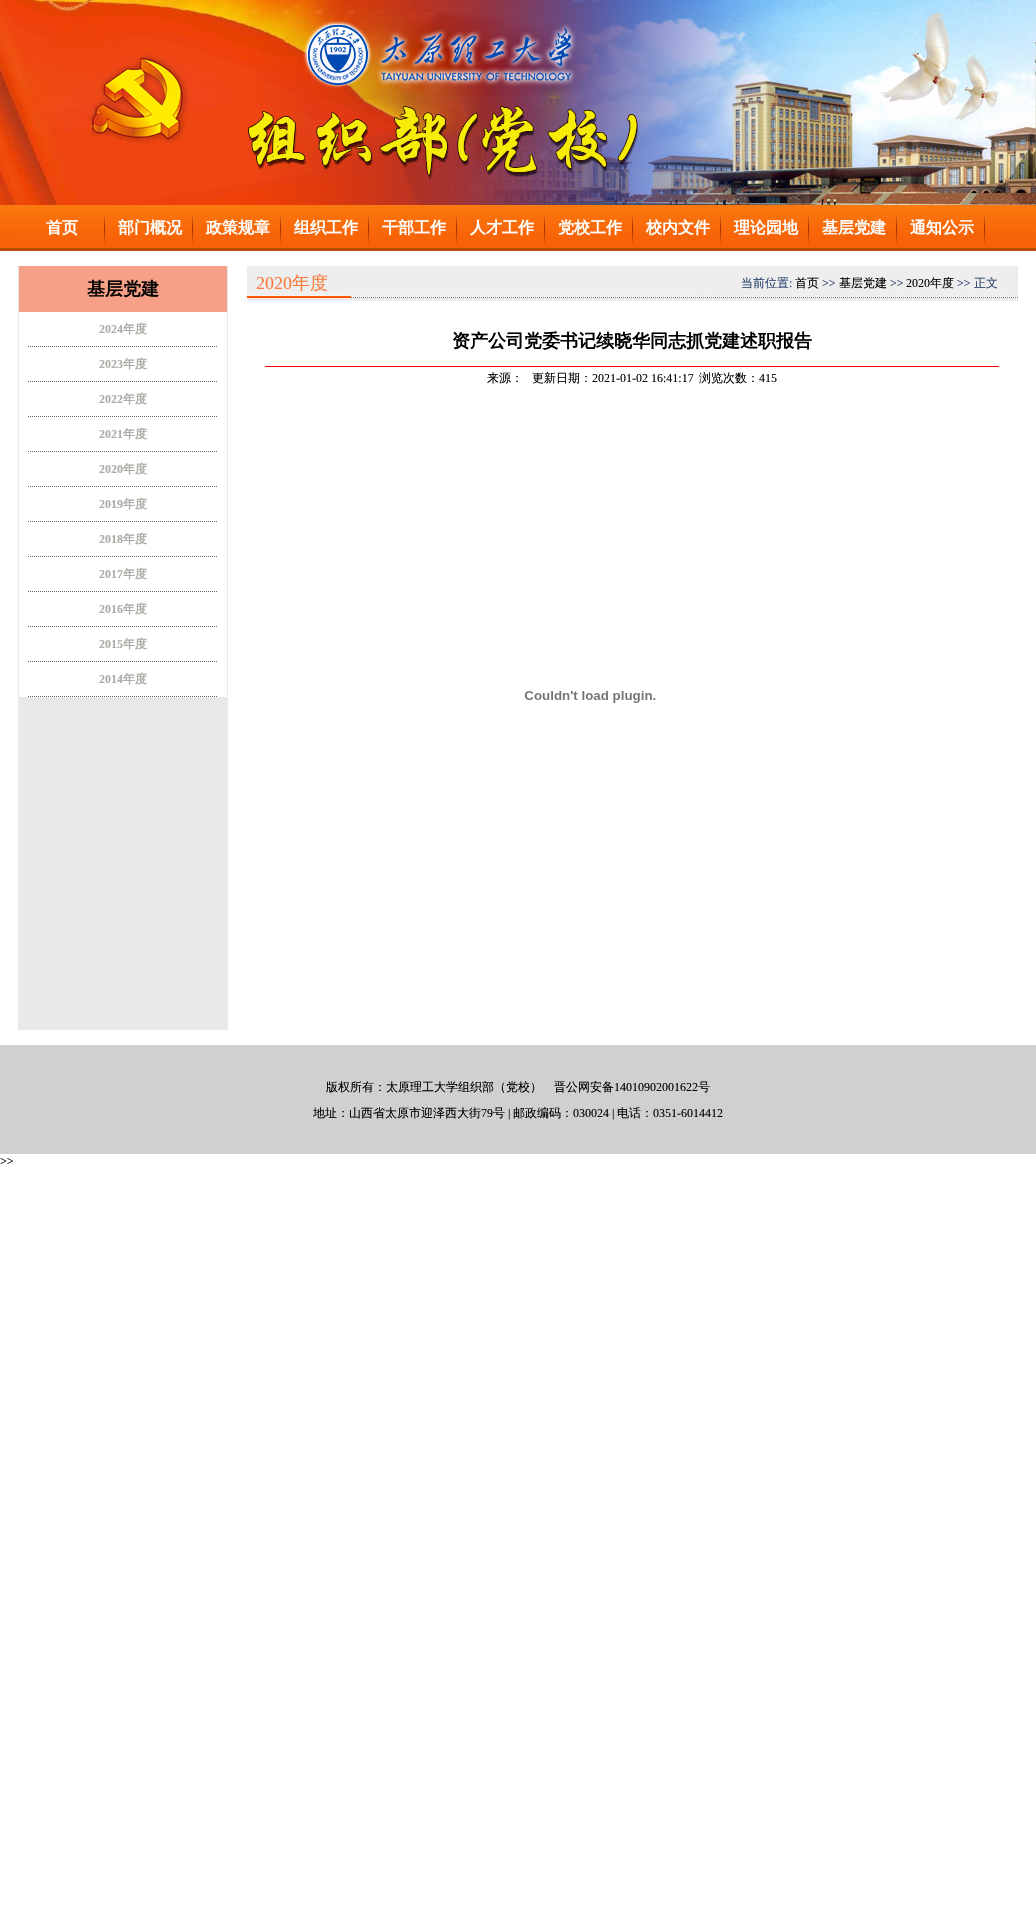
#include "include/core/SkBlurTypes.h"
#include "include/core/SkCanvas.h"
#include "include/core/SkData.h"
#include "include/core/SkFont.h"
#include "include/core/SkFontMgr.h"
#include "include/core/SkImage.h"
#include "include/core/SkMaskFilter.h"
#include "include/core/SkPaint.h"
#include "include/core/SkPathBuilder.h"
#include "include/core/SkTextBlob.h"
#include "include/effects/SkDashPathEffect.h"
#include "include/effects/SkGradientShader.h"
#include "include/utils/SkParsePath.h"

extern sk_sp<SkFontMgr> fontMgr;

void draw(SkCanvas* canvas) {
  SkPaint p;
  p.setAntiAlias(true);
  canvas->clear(SK_ColorWHITE);
  canvas->drawImageRect(SkImages::DeferredFromEncodedData(SkData::MakeFromFileName("images/1.png")), SkRect::MakeLTRB(0, 0, 1036, 275), SkSamplingOptions());
  canvas->drawImageRect(SkImages::DeferredFromEncodedData(SkData::MakeFromFileName("images/2.png")), SkRect::MakeLTRB(18, 0, 1018, 205), SkSamplingOptions());
  canvas->drawImageRect(SkImages::DeferredFromEncodedData(SkData::MakeFromFileName("images/3.png")), SkRect::MakeLTRB(18, 205, 1018, 251), SkSamplingOptions());
  canvas->drawImageRect(SkImages::DeferredFromEncodedData(SkData::MakeFromFileName("images/4.png")), SkRect::MakeLTRB(104, 214, 105, 244), SkSamplingOptions());
  canvas->drawImageRect(SkImages::DeferredFromEncodedData(SkData::MakeFromFileName("images/4.png")), SkRect::MakeLTRB(192, 214, 193, 244), SkSamplingOptions());
  canvas->drawImageRect(SkImages::DeferredFromEncodedData(SkData::MakeFromFileName("images/4.png")), SkRect::MakeLTRB(280, 214, 281, 244), SkSamplingOptions());
  canvas->drawImageRect(SkImages::DeferredFromEncodedData(SkData::MakeFromFileName("images/4.png")), SkRect::MakeLTRB(368, 214, 369, 244), SkSamplingOptions());
  canvas->drawImageRect(SkImages::DeferredFromEncodedData(SkData::MakeFromFileName("images/4.png")), SkRect::MakeLTRB(456, 214, 457, 244), SkSamplingOptions());
  canvas->drawImageRect(SkImages::DeferredFromEncodedData(SkData::MakeFromFileName("images/4.png")), SkRect::MakeLTRB(544, 214, 545, 244), SkSamplingOptions());
  canvas->drawImageRect(SkImages::DeferredFromEncodedData(SkData::MakeFromFileName("images/4.png")), SkRect::MakeLTRB(632, 214, 633, 244), SkSamplingOptions());
  canvas->drawImageRect(SkImages::DeferredFromEncodedData(SkData::MakeFromFileName("images/4.png")), SkRect::MakeLTRB(720, 214, 721, 244), SkSamplingOptions());
  canvas->drawImageRect(SkImages::DeferredFromEncodedData(SkData::MakeFromFileName("images/4.png")), SkRect::MakeLTRB(808, 214, 809, 244), SkSamplingOptions());
  canvas->drawImageRect(SkImages::DeferredFromEncodedData(SkData::MakeFromFileName("images/4.png")), SkRect::MakeLTRB(896, 214, 897, 244), SkSamplingOptions());
  canvas->drawImageRect(SkImages::DeferredFromEncodedData(SkData::MakeFromFileName("images/4.png")), SkRect::MakeLTRB(984, 214, 985, 244), SkSamplingOptions());
  p.setColor(SkColorSetRGB(233, 233, 233));
  canvas->drawRect(SkRect::MakeLTRB(18, 266, 228, 1030), p);
  p.setColor(SkColorSetRGB(246, 160, 135));
  canvas->drawRect(SkRect::MakeLTRB(19, 266, 227, 312), p);
  p.setColor(SK_ColorWHITE);
  canvas->drawRect(SkRect::MakeLTRB(19, 312, 227, 697), p);
  p.setStyle(SkPaint::kStroke_Style);
  p.setStrokeWidth(1);
  p.setColor(SkColorSetRGB(102, 102, 102));
  p.setPathEffect(SkDashPathEffect::Make({{1, 1}}, 0));
  canvas->drawPath(SkPathBuilder().moveTo(28, 346.5f).lineTo(218, 346.5f).detach(), p);
  p.setPathEffect(nullptr);
  p.setPathEffect(SkDashPathEffect::Make({{1, 1}}, 0));
  canvas->drawPath(SkPathBuilder().moveTo(28, 381.5f).lineTo(218, 381.5f).detach(), p);
  p.setPathEffect(nullptr);
  p.setPathEffect(SkDashPathEffect::Make({{1, 1}}, 0));
  canvas->drawPath(SkPathBuilder().moveTo(28, 416.5f).lineTo(218, 416.5f).detach(), p);
  p.setPathEffect(nullptr);
  p.setPathEffect(SkDashPathEffect::Make({{1, 1}}, 0));
  canvas->drawPath(SkPathBuilder().moveTo(28, 451.5f).lineTo(218, 451.5f).detach(), p);
  p.setPathEffect(nullptr);
  p.setPathEffect(SkDashPathEffect::Make({{1, 1}}, 0));
  canvas->drawPath(SkPathBuilder().moveTo(28, 486.5f).lineTo(218, 486.5f).detach(), p);
  p.setPathEffect(nullptr);
  p.setPathEffect(SkDashPathEffect::Make({{1, 1}}, 0));
  canvas->drawPath(SkPathBuilder().moveTo(28, 521.5f).lineTo(218, 521.5f).detach(), p);
  p.setPathEffect(nullptr);
  p.setPathEffect(SkDashPathEffect::Make({{1, 1}}, 0));
  canvas->drawPath(SkPathBuilder().moveTo(28, 556.5f).lineTo(218, 556.5f).detach(), p);
  p.setPathEffect(nullptr);
  p.setPathEffect(SkDashPathEffect::Make({{1, 1}}, 0));
  canvas->drawPath(SkPathBuilder().moveTo(28, 591.5f).lineTo(218, 591.5f).detach(), p);
  p.setPathEffect(nullptr);
  p.setPathEffect(SkDashPathEffect::Make({{1, 1}}, 0));
  canvas->drawPath(SkPathBuilder().moveTo(28, 626.5f).lineTo(218, 626.5f).detach(), p);
  p.setPathEffect(nullptr);
  p.setPathEffect(SkDashPathEffect::Make({{1, 1}}, 0));
  canvas->drawPath(SkPathBuilder().moveTo(28, 661.5f).lineTo(218, 661.5f).detach(), p);
  p.setPathEffect(nullptr);
  p.setPathEffect(SkDashPathEffect::Make({{1, 1}}, 0));
  canvas->drawPath(SkPathBuilder().moveTo(28, 696.5f).lineTo(218, 696.5f).detach(), p);
  p.setPathEffect(nullptr);
  canvas->drawImageRect(SkImages::DeferredFromEncodedData(SkData::MakeFromFileName("images/5.png")), SkRect::MakeLTRB(246, 266, 1018, 301), SkSamplingOptions());
  p.setStyle(SkPaint::kFill_Style);
  p.setColor(SkColorSetRGB(247, 0, 0));
  canvas->drawRect(SkRect::MakeLTRB(265, 366, 999, 367), p);
  canvas->drawImageRect(SkImages::DeferredFromEncodedData(SkData::MakeFromFileName("images/6.png")), SkRect::MakeLTRB(524, 691, 656, 703), SkSamplingOptions());
  p.setColor(SkColorSetRGB(208, 208, 208));
  canvas->drawRect(SkRect::MakeLTRB(0, 1045, 1036, 1154), p);
  SkFont font1(fontMgr->matchFamilyStyle("WenQuanYi Zen Hei", SkFontStyle::Bold()), 16);
  font1.setSubpixel(true);
  p.setColor(SK_ColorWHITE);
  canvas->drawString("首页", 46, 233, font1, p);
  canvas->drawString("部门概况", 118, 233, font1, p);
  canvas->drawString("政策规章", 206, 233, font1, p);
  canvas->drawString("组织工作", 294, 233, font1, p);
  canvas->drawString("干部工作", 382, 233, font1, p);
  canvas->drawString("人才工作", 470, 233, font1, p);
  canvas->drawString("党校工作", 558, 233, font1, p);
  canvas->drawString("校内文件", 646, 233, font1, p);
  canvas->drawString("理论园地", 734, 233, font1, p);
  canvas->drawString("基层党建", 822, 233, font1, p);
  canvas->drawString("通知公示", 910, 233, font1, p);
  SkFont font2(fontMgr->matchFamilyStyle("WenQuanYi Zen Hei", SkFontStyle::Bold()), 18);
  font2.setSubpixel(true);
  p.setColor(SK_ColorBLACK);
  canvas->drawString("基层党建", 87, 295, font2, p);
  SkFont font3(fontMgr->matchFamilyStyle("Liberation Serif", SkFontStyle::Bold()), 12);
  font3.setSubpixel(true);
  p.setColor(SkColorSetRGB(172, 173, 167));
  canvas->drawString("2024", 99, 333, font3, p);
  SkFont font4(fontMgr->matchFamilyStyle("WenQuanYi Zen Hei", SkFontStyle::Bold()), 12);
  font4.setSubpixel(true);
  canvas->drawString("年度", 123, 333, font4, p);
  canvas->drawString("2023", 99, 368, font3, p);
  canvas->drawString("年度", 123, 368, font4, p);
  canvas->drawString("2022", 99, 403, font3, p);
  canvas->drawString("年度", 123, 403, font4, p);
  canvas->drawString("2021", 99, 438, font3, p);
  canvas->drawString("年度", 123, 438, font4, p);
  canvas->drawString("2020", 99, 473, font3, p);
  canvas->drawString("年度", 123, 473, font4, p);
  canvas->drawString("2019", 99, 508, font3, p);
  canvas->drawString("年度", 123, 508, font4, p);
  canvas->drawString("2018", 99, 543, font3, p);
  canvas->drawString("年度", 123, 543, font4, p);
  canvas->drawString("2017", 99, 578, font3, p);
  canvas->drawString("年度", 123, 578, font4, p);
  canvas->drawString("2016", 99, 613, font3, p);
  canvas->drawString("年度", 123, 613, font4, p);
  canvas->drawString("2015", 99, 648, font3, p);
  canvas->drawString("年度", 123, 648, font4, p);
  canvas->drawString("2014", 99, 683, font3, p);
  canvas->drawString("年度", 123, 683, font4, p);
  SkFont font5(fontMgr->matchFamilyStyle("Liberation Serif", SkFontStyle::Normal()), 18);
  font5.setSubpixel(true);
  p.setColor(SkColorSetRGB(251, 123, 60));
  canvas->drawString("2020", 256, 289, font5, p);
  SkFont font6(fontMgr->matchFamilyStyle("WenQuanYi Zen Hei", SkFontStyle(500, SkFontStyle::kNormal_Width, SkFontStyle::kUpright_Slant)), 18);
  font6.setSubpixel(true);
  canvas->drawString("年度", 292, 289, font6, p);
  SkFont font7(fontMgr->matchFamilyStyle("WenQuanYi Zen Hei", SkFontStyle(500, SkFontStyle::kNormal_Width, SkFontStyle::kUpright_Slant)), 12);
  font7.setSubpixel(true);
  p.setColor(SkColorSetRGB(39, 64, 108));
  canvas->drawString("当前位置", 741, 287, font7, p);
  SkFont font8(fontMgr->matchFamilyStyle("Liberation Serif", SkFontStyle::Normal()), 12);
  font8.setSubpixel(true);
  canvas->drawString(":", 789, 287, font8, p);
  p.setColor(SK_ColorBLACK);
  canvas->drawString("首页", 795, 287, font7, p);
  p.setColor(SkColorSetRGB(39, 64, 108));
  canvas->drawString(">>", 822, 287, font8, p);
  p.setColor(SK_ColorBLACK);
  canvas->drawString("基层党建", 839, 287, font7, p);
  p.setColor(SkColorSetRGB(39, 64, 108));
  canvas->drawString(">>", 890, 287, font8, p);
  p.setColor(SK_ColorBLACK);
  canvas->drawString("2020", 906, 287, font8, p);
  canvas->drawString("年度", 930, 287, font7, p);
  p.setColor(SkColorSetRGB(39, 64, 108));
  canvas->drawString(">>", 957, 287, font8, p);
  canvas->drawString("正文", 974, 287, font7, p);
  p.setColor(SK_ColorBLACK);
  canvas->drawString("资产公司党委书记续晓华同志抓党建述职报告", 452, 347, font2, p);
  canvas->drawString("来源：", 487, 382, font7, p);
  canvas->drawString("更新日期：", 532, 382, font7, p);
  canvas->drawString("2021-01-02 16:41:17", 592, 382, font8, p);
  canvas->drawString("浏览次数：", 699, 382, font7, p);
  canvas->drawString("415", 759, 382, font8, p);
  canvas->drawString("版权所有：太原理工大学组织部（党校）", 326, 1091, font7, p);
  canvas->drawString("晋公网安备", 554, 1091, font7, p);
  canvas->drawString("14010902001622", 614, 1091, font8, p);
  canvas->drawString("号", 698, 1091, font7, p);
  canvas->drawString("地址：山西省太原市迎泽西大街", 313, 1117, font7, p);
  canvas->drawString("79", 481, 1117, font8, p);
  canvas->drawString("号", 493, 1117, font7, p);
  canvas->drawString("|", 508, 1117, font8, p);
  canvas->drawString("邮政编码：", 513, 1117, font7, p);
  canvas->drawString("030024 |", 573, 1117, font8, p);
  canvas->drawString("电话：", 617, 1117, font7, p);
  canvas->drawString("0351-6014412", 653, 1117, font8, p);
  canvas->drawString(">>", 0, 1165, font8, p);
}
